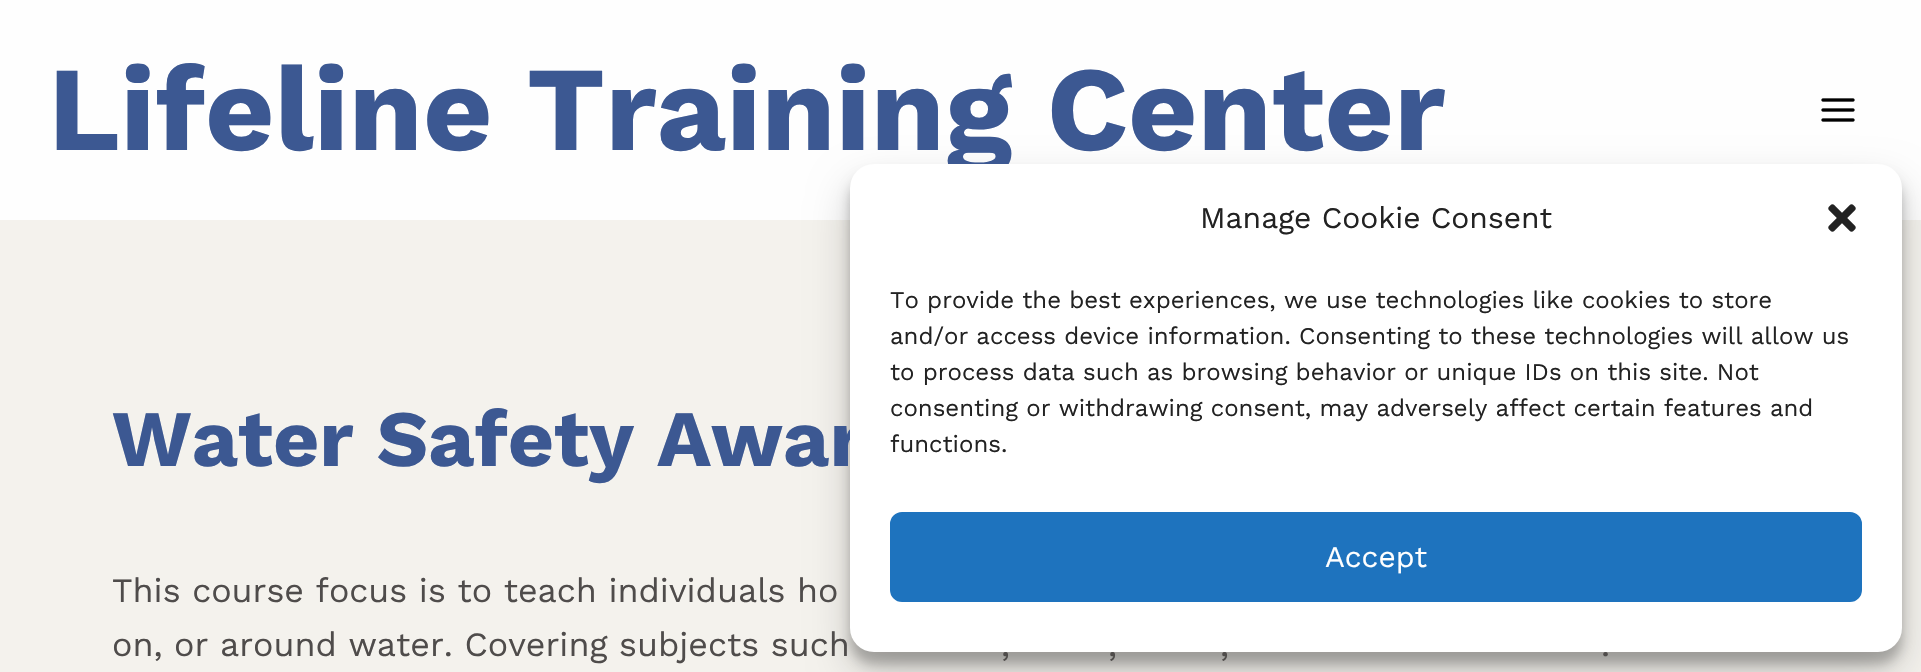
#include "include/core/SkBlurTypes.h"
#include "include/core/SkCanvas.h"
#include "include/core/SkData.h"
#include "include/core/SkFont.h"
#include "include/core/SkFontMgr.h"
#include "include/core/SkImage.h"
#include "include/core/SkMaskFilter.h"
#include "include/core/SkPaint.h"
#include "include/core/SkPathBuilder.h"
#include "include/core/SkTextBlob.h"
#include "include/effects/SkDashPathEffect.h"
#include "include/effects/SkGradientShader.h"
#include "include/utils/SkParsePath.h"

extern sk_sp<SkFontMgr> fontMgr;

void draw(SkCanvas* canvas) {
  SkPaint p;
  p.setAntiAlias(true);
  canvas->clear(SkColorSetRGB(244, 242, 237));
  p.setColor(SkColorSetRGB(254, 254, 254));
  canvas->drawRect(SkRect::MakeLTRB(0, 0, 1921, 220), p);
  canvas->drawImageRect(SkImages::DeferredFromEncodedData(SkData::MakeFromFileName("images/1.png")), SkRect::MakeLTRB(1821, 98, 1855, 122), SkSamplingOptions());
  p.setColor(SkColorSetARGB(59, 0, 0, 0));
  p.setMaskFilter(SkMaskFilter::MakeBlur(kNormal_SkBlurStyle, 6));
  canvas->drawRoundRect(SkRect::MakeLTRB(850, 176, 1902, 664), 24, 24, p);
  p.setMaskFilter(nullptr);
  p.setColor(SkColorSetARGB(48, 0, 0, 0));
  p.setMaskFilter(SkMaskFilter::MakeBlur(kNormal_SkBlurStyle, 20));
  canvas->drawRoundRect(SkRect::MakeLTRB(850, 184, 1902, 672), 24, 24, p);
  p.setMaskFilter(nullptr);
  SkFont font1(fontMgr->matchFamilyStyle("Work Sans", SkFontStyle::Bold()), 120);
  font1.setSubpixel(true);
  p.setColor(SkColorSetRGB(60, 88, 146));
  canvas->drawString("Lifeline Training Center", 48, 150, font1, p);
  SkFont font2(fontMgr->matchFamilyStyle("Work Sans", SkFontStyle::Bold()), 80);
  font2.setSubpixel(true);
  canvas->drawString("Water Safety Awar", 112, 466, font2, p);
  SkFont font3(fontMgr->matchFamilyStyle("Work Sans", SkFontStyle::Normal()), 34);
  font3.setSubpixel(true);
  p.setColor(SkColorSetRGB(79, 76, 75));
  canvas->drawString("This course focus is to teach individuals ho", 112, 602, font3, p);
  canvas->drawString("on, or around water. Covering subjects such", 112, 656, font3, p);
  canvas->drawString(",", 1001, 656, font3, p);
  canvas->drawString(",", 1108, 656, font3, p);
  canvas->drawString(",", 1220, 656, font3, p);
  canvas->drawString(".", 1601, 656, font3, p);
  p.setColor(SK_ColorWHITE);
  canvas->drawRoundRect(SkRect::MakeLTRB(850, 164, 1902, 652), 24, 24, p);
  SkFont font4(fontMgr->matchFamilyStyle("Work Sans", SkFontStyle::Normal()), 30);
  font4.setSubpixel(true);
  p.setColor(SkColorSetRGB(34, 34, 34));
  canvas->drawString("Manage Cookie Consent", 1200, 228, font4, p);
  canvas->drawImageRect(SkImages::DeferredFromEncodedData(SkData::MakeFromFileName("images/2.png")), SkRect::MakeLTRB(1828, 204, 1856, 232), SkSamplingOptions());
  SkFont font5(fontMgr->matchFamilyStyle("Work Sans", SkFontStyle::Normal()), 24);
  font5.setSubpixel(true);
  canvas->drawString("To provide the best experiences, we use technologies like cookies to store", 890, 308, font5, p);
  canvas->drawString("and/or access device information. Consenting to these technologies will allow us", 890, 344, font5, p);
  canvas->drawString("to process data such as browsing behavior or unique IDs on this site. Not", 890, 380, font5, p);
  canvas->drawString("consenting or withdrawing consent, may adversely affect certain features and", 890, 416, font5, p);
  canvas->drawString("functions.", 890, 452, font5, p);
  p.setColor(SkColorSetRGB(30, 115, 190));
  canvas->drawRoundRect(SkRect::MakeLTRB(891, 513, 1861, 601), 11, 11, p);
  p.setStyle(SkPaint::kStroke_Style);
  p.setStrokeWidth(2);
  canvas->drawRoundRect(SkRect::MakeLTRB(891, 513, 1861, 601), 11, 11, p);
  p.setStyle(SkPaint::kFill_Style);
  p.setColor(SK_ColorWHITE);
  canvas->drawString("Accept", 1325, 567, font4, p);
}
